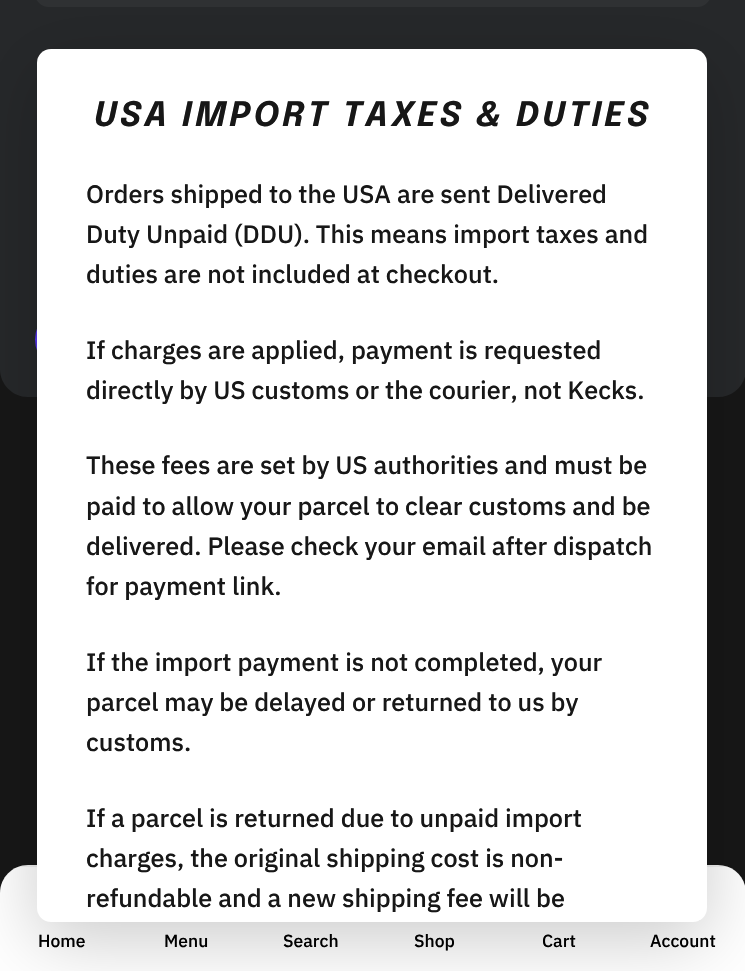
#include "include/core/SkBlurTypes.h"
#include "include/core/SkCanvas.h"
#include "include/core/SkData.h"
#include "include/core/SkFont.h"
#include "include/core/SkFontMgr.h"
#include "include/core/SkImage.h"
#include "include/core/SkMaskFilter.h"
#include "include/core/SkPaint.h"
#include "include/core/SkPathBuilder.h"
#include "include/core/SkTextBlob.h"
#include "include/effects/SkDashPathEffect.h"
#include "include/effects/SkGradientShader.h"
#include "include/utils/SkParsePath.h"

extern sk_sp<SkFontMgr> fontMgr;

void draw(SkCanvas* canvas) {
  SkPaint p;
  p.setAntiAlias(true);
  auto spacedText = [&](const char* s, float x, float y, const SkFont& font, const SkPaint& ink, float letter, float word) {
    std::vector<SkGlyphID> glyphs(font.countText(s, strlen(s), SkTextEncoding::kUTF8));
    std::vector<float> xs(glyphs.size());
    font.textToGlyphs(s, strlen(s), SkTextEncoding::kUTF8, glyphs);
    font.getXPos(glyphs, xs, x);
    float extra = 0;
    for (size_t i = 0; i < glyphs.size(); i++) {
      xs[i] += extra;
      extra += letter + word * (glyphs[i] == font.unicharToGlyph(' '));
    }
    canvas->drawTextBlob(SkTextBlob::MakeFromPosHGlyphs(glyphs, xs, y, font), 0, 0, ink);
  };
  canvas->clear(SkColorSetRGB(23, 23, 23));
  p.setColor(SkColorSetRGB(38, 40, 42));
  canvas->drawPath(SkPathBuilder().moveTo(0, -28).lineTo(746, -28).lineTo(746, 369).cubicTo(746, 384.5f, 733.5f, 397, 718, 397).lineTo(28, 397).cubicTo(12.5f, 397, 0, 384.5f, 0, 369).close().detach(), p);
  p.setColor(SkColorSetRGB(47, 49, 51));
  canvas->drawRoundRect(SkRect::MakeLTRB(35, -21, 711, 7), 21, 21, p);
  p.setColor(SkColorSetRGB(84, 51, 235));
  canvas->drawRoundRect(SkRect::MakeLTRB(35, 308, 315, 371), 31.5f, 31.5f, p);
  p.setColor(SK_ColorWHITE);
  canvas->drawPath(SkPathBuilder().moveTo(28, 865).lineTo(718, 865).cubicTo(733.5f, 865, 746, 877.5f, 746, 893).lineTo(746, 971).lineTo(0, 971).lineTo(0, 893).cubicTo(0, 877.5f, 12.5f, 865, 28, 865).close().detach(), p);
  p.setColor(SkColorSetARGB(15, 0, 0, 0));
  canvas->drawRect(SkRect::MakeLTRB(14, 865, 732, 867), p);
  canvas->drawImageRect(SkImages::DeferredFromEncodedData(SkData::MakeFromFileName("images/1.png")), SkRect::MakeLTRB(698, 920, 700, 921), SkSamplingOptions());
  p.setColor(SkColorSetARGB(51, 0, 0, 0));
  p.setMaskFilter(SkMaskFilter::MakeBlur(kNormal_SkBlurStyle, 35));
  canvas->drawRoundRect(SkRect::MakeLTRB(37, 67, 707, 940), 14, 14, p);
  p.setMaskFilter(nullptr);
  p.setColor(SK_ColorWHITE);
  canvas->drawRoundRect(SkRect::MakeLTRB(37, 49, 707, 922), 14, 14, p);
  SkFont font1(fontMgr->matchFamilyStyle("Epilogue", SkFontStyle::BoldItalic()), 33.6f);
  font1.setSubpixel(true);
  p.setColor(SkColorSetRGB(23, 23, 23));
  spacedText("USA IMPORT TAXES & DUTIES", 94, 126, font1, p, 3.5f, 0);
  SkFont font2(fontMgr->matchFamilyStyle("IBM Plex Sans", SkFontStyle(500, SkFontStyle::kNormal_Width, SkFontStyle::kUpright_Slant)), 25.2f);
  font2.setSubpixel(true);
  canvas->drawString("Orders shipped to the USA are sent Delivered", 86, 203, font2, p);
  canvas->drawString("Duty Unpaid (DDU). This means import taxes and", 86, 243, font2, p);
  canvas->drawString("duties are not included at checkout.", 86, 283, font2, p);
  canvas->drawString("If charges are applied, payment is requested", 86, 359, font2, p);
  canvas->drawString("directly by US customs or the courier, not Kecks.", 86, 399, font2, p);
  canvas->drawString("These fees are set by US authorities and must be", 86, 474, font2, p);
  canvas->drawString("paid to allow your parcel to clear customs and be", 86, 515, font2, p);
  canvas->drawString("delivered. Please check your email after dispatch", 86, 555, font2, p);
  canvas->drawString("for payment link.", 86, 595, font2, p);
  canvas->drawString("If the import payment is not completed, your", 86, 671, font2, p);
  canvas->drawString("parcel may be delayed or returned to us by", 86, 711, font2, p);
  canvas->drawString("customs.", 86, 751, font2, p);
  canvas->drawString("If a parcel is returned due to unpaid import", 86, 827, font2, p);
  canvas->drawString("charges, the original shipping cost is non-", 86, 867, font2, p);
  canvas->drawString("refundable and a new shipping fee will be", 86, 907, font2, p);
  SkFont font3(fontMgr->matchFamilyStyle("IBM Plex Sans", SkFontStyle(500, SkFontStyle::kNormal_Width, SkFontStyle::kUpright_Slant)), 17.5f);
  font3.setSubpixel(true);
  p.setColor(SK_ColorBLACK);
  canvas->drawString("Home", 38, 947, font3, p);
  canvas->drawString("Menu", 164, 947, font3, p);
  canvas->drawString("Search", 283, 947, font3, p);
  canvas->drawString("Shop", 414, 947, font3, p);
  canvas->drawString("Cart", 542, 947, font3, p);
  canvas->drawString("Account", 650, 947, font3, p);
}
